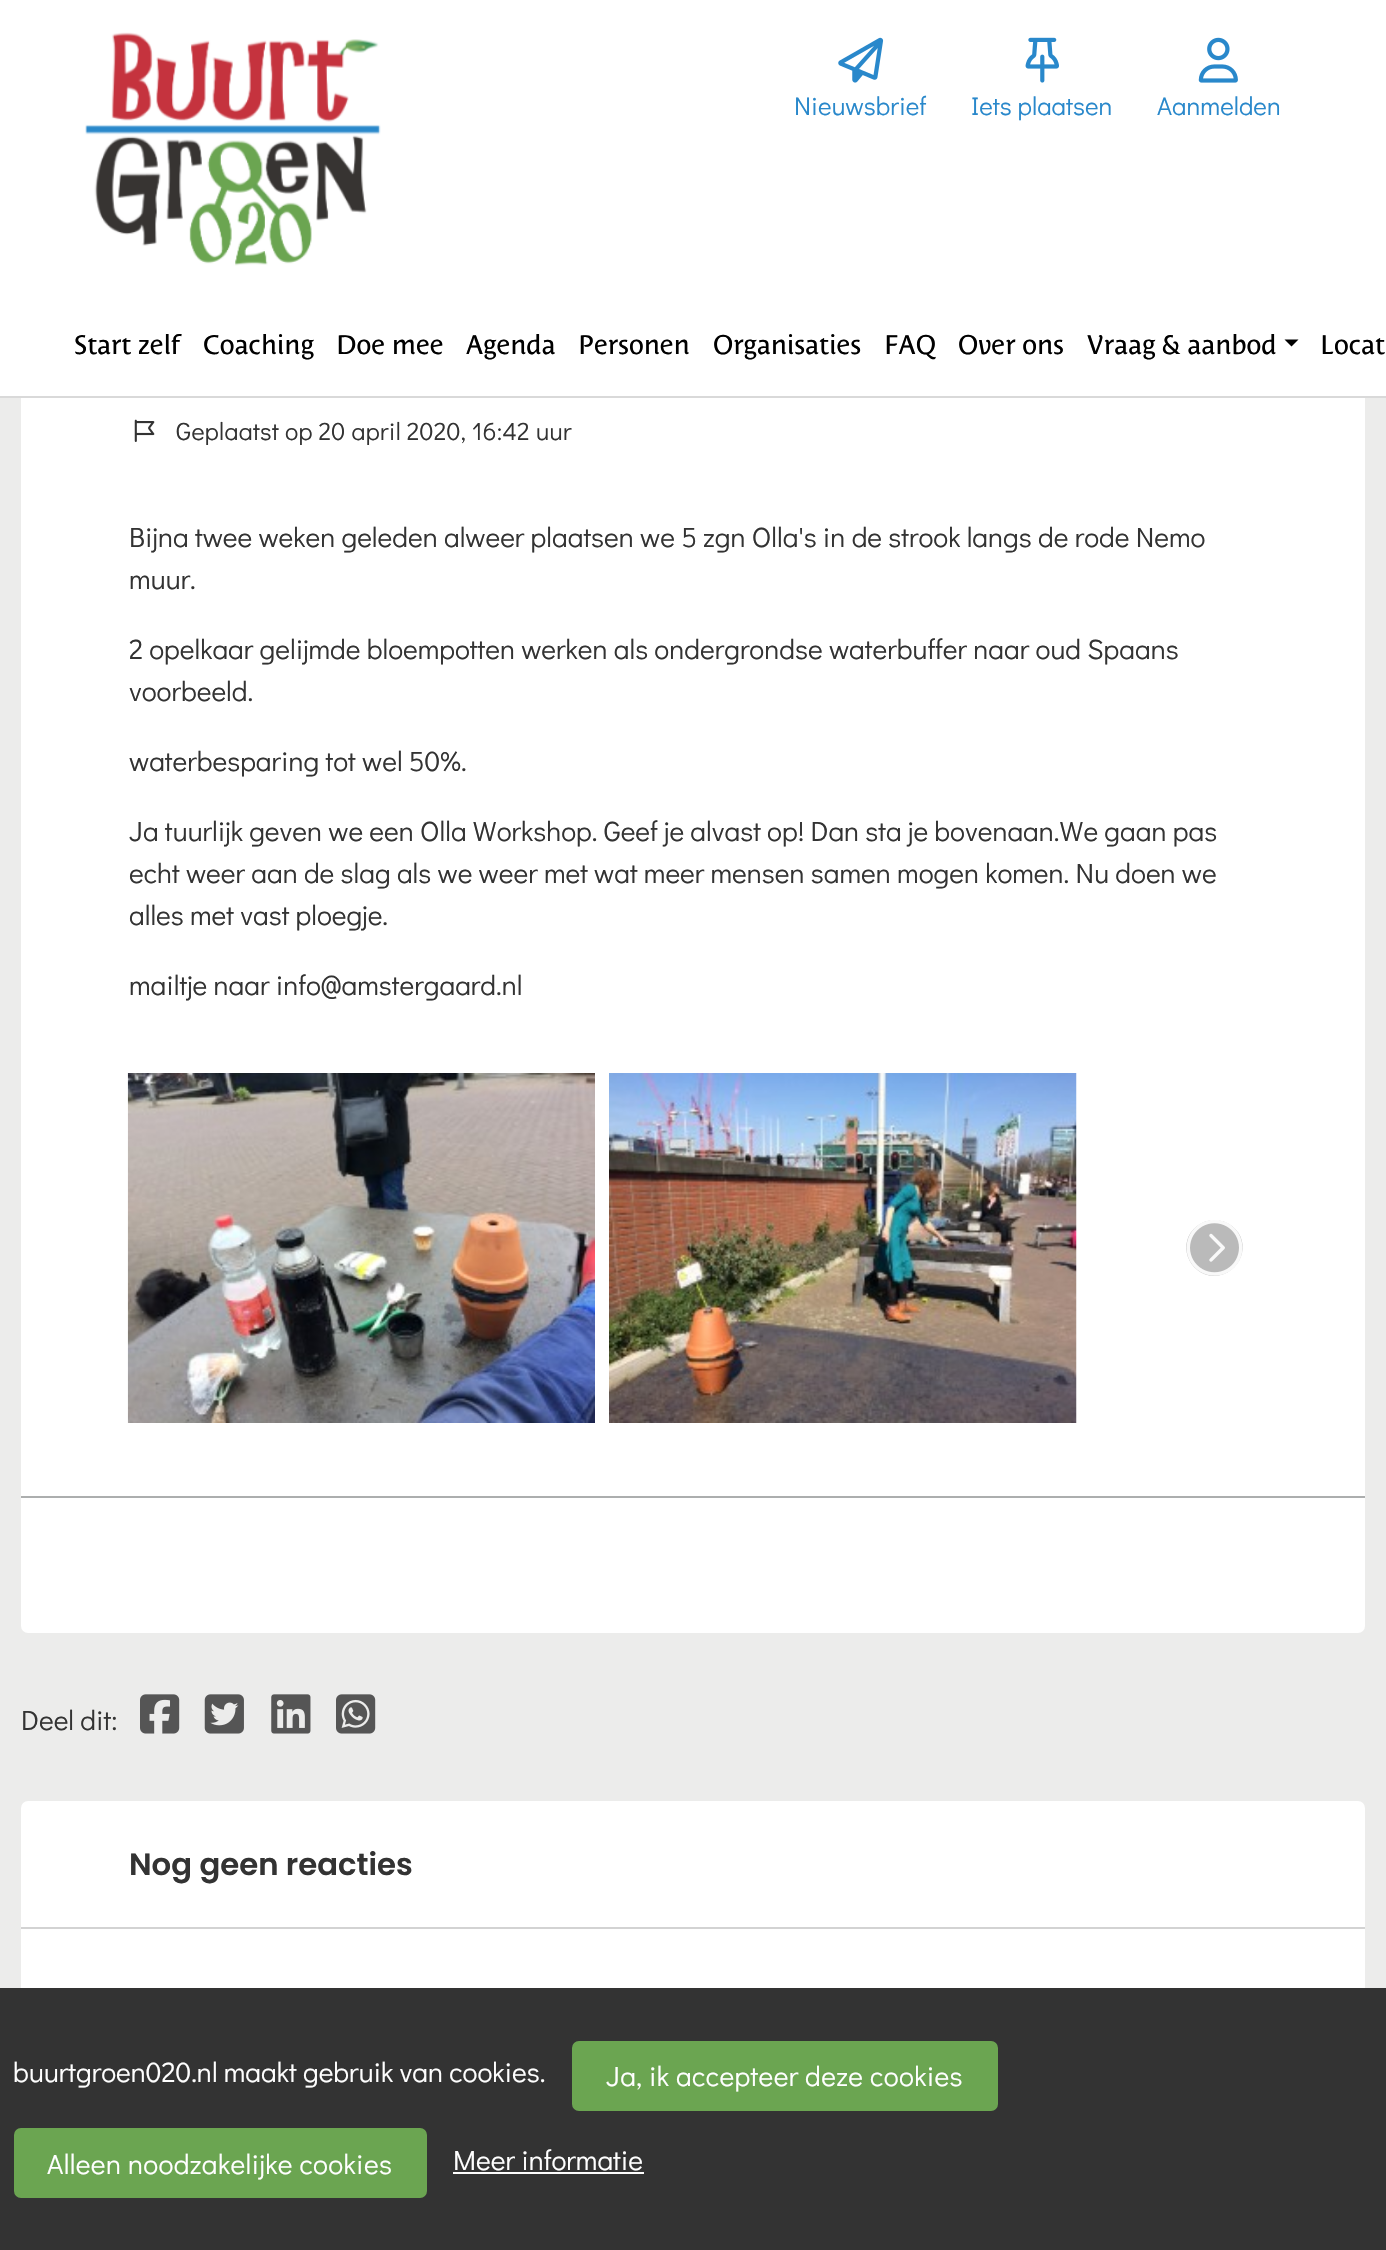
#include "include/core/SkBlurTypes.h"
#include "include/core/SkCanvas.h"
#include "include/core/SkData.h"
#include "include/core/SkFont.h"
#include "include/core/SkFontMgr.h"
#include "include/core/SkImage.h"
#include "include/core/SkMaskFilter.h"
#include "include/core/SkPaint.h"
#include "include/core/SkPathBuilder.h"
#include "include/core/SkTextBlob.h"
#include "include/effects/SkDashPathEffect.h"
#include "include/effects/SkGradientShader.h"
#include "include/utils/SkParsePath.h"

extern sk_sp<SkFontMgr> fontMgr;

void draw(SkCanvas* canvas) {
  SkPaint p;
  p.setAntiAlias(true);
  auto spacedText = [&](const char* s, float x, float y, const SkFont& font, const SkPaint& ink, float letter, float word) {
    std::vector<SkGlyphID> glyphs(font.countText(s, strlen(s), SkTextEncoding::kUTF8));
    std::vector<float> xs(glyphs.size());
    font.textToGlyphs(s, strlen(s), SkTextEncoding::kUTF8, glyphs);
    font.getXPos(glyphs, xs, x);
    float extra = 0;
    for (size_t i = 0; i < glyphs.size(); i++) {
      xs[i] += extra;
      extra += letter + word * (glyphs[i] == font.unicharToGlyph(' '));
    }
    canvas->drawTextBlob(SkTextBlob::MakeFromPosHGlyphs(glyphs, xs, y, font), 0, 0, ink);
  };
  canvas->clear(SkColorSetRGB(236, 236, 235));
  p.setColor(SK_ColorWHITE);
  canvas->drawRoundRect(SkRect::MakeLTRB(21, 166, 1365, 1633), 7, 7, p);
  canvas->drawRect(SkRect::MakeLTRB(0, 0, 1386, 396), p);
  p.setColor(SkColorSetRGB(217, 217, 217));
  canvas->drawRect(SkRect::MakeLTRB(0, 396, 1386, 398), p);
  canvas->drawImageRect(SkImages::DeferredFromEncodedData(SkData::MakeFromFileName("images/1.png")), SkRect::MakeLTRB(85, 32, 381, 266), SkSamplingOptions());
  canvas->drawImageRect(SkImages::DeferredFromEncodedData(SkData::MakeFromFileName("images/2.png")), SkRect::MakeLTRB(838, 37, 884, 83), SkSamplingOptions());
  canvas->drawImageRect(SkImages::DeferredFromEncodedData(SkData::MakeFromFileName("images/3.png")), SkRect::MakeLTRB(1025, 37, 1059, 83), SkSamplingOptions());
  canvas->drawImageRect(SkImages::DeferredFromEncodedData(SkData::MakeFromFileName("images/4.png")), SkRect::MakeLTRB(1198, 37, 1238, 83), SkSamplingOptions());
  p.setColor(SK_ColorBLACK);
  canvas->drawPath(SkPathBuilder().moveTo(1284.5f, 339.5f).lineTo(1298.5f, 339.5f).lineTo(1291.5f, 346.5f).close().detach(), p);
  canvas->drawImageRect(SkImages::DeferredFromEncodedData(SkData::MakeFromFileName("images/5.png")), SkRect::MakeLTRB(134, 419, 155, 442), SkSamplingOptions());
  canvas->drawImageRect(SkImages::DeferredFromEncodedData(SkData::MakeFromFileName("images/6.png")), SkRect::MakeLTRB(127, 1073, 595, 1423), SkSamplingOptions());
  canvas->drawImageRect(SkImages::DeferredFromEncodedData(SkData::MakeFromFileName("images/7.png")), SkRect::MakeLTRB(609, 1073, 1077, 1423), SkSamplingOptions());
  p.setColor(SkColorSetRGB(186, 186, 186));
  canvas->drawPath(SkPathBuilder().moveTo(1214, 1276).cubicTo(1241, 1275, 1253, 1242, 1232, 1226).cubicTo(1227, 1222, 1221, 1220, 1214, 1220).cubicTo(1208, 1220, 1202, 1222, 1197, 1226).cubicTo(1176, 1242, 1188, 1275, 1214, 1276).close().detach(), p);
  canvas->drawImageRect(SkImages::DeferredFromEncodedData(SkData::MakeFromFileName("images/8.png")), SkRect::MakeLTRB(1186, 1220, 1243, 1276), SkSamplingOptions());
  p.setColor(SkColorSetRGB(172, 174, 174));
  canvas->drawRect(SkRect::MakeLTRB(21, 1496, 1365, 1498), p);
  canvas->drawImageRect(SkImages::DeferredFromEncodedData(SkData::MakeFromFileName("images/9.png")), SkRect::MakeLTRB(140, 1694, 180, 1734), SkSamplingOptions());
  canvas->drawImageRect(SkImages::DeferredFromEncodedData(SkData::MakeFromFileName("images/10.png")), SkRect::MakeLTRB(204, 1694, 244, 1734), SkSamplingOptions());
  canvas->drawImageRect(SkImages::DeferredFromEncodedData(SkData::MakeFromFileName("images/11.png")), SkRect::MakeLTRB(271, 1694, 311, 1734), SkSamplingOptions());
  canvas->drawImageRect(SkImages::DeferredFromEncodedData(SkData::MakeFromFileName("images/12.png")), SkRect::MakeLTRB(336, 1694, 376, 1734), SkSamplingOptions());
  p.setColor(SK_ColorWHITE);
  canvas->drawRoundRect(SkRect::MakeLTRB(21, 1801, 1365, 2055), 7, 7, p);
  p.setColor(SkColorSetRGB(211, 211, 211));
  canvas->drawRect(SkRect::MakeLTRB(21, 1927, 1365, 1929), p);
  p.setColor(SkColorSetRGB(51, 51, 51));
  canvas->drawRect(SkRect::MakeLTRB(0, 1988, 1386, 2250), p);
  p.setColor(SkColorSetRGB(107, 165, 81));
  canvas->drawRoundRect(SkRect::MakeLTRB(574, 2043, 996, 2109), 5, 5, p);
  p.setStyle(SkPaint::kStroke_Style);
  p.setStrokeWidth(4);
  canvas->drawRoundRect(SkRect::MakeLTRB(574, 2043, 996, 2109), 5, 5, p);
  p.setStyle(SkPaint::kFill_Style);
  canvas->drawRoundRect(SkRect::MakeLTRB(16, 2130, 425, 2196), 5, 5, p);
  p.setStyle(SkPaint::kStroke_Style);
  canvas->drawRoundRect(SkRect::MakeLTRB(16, 2130, 425, 2196), 5, 5, p);
  p.setStyle(SkPaint::kFill_Style);
  p.setColor(SK_ColorWHITE);
  canvas->drawRect(SkRect::MakeLTRB(453, 2172, 644, 2174), p);
  SkFont font1(fontMgr->matchFamilyStyle("Didact Gothic", SkFontStyle::Normal()), 25.75f);
  font1.setSubpixel(true);
  p.setColor(SkColorSetRGB(41, 136, 203));
  canvas->drawString("Nieuwsbrief", 794, 115, font1, p);
  canvas->drawString("Iets plaatsen", 971, 115, font1, p);
  canvas->drawString("Aanmelden", 1157, 115, font1, p);
  SkFont font2(fontMgr->matchFamilyStyle("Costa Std", SkFontStyle::Normal()), 26.5f);
  font2.setSubpixel(true);
  p.setColor(SK_ColorBLACK);
  canvas->drawString("Start zelf", 74, 354, font2, p);
  canvas->drawString("Coaching", 203, 354, font2, p);
  canvas->drawString("Doe mee", 336, 354, font2, p);
  canvas->drawString("Agenda", 466, 354, font2, p);
  canvas->drawString("Personen", 578, 354, font2, p);
  canvas->drawString("Organisaties", 713, 354, font2, p);
  canvas->drawString("FAQ", 884, 354, font2, p);
  canvas->drawString("Over ons", 958, 354, font2, p);
  canvas->drawString("Vraag & aanbod", 1087, 354, font2, p);
  canvas->drawString("Locat", 1320, 354, font2, p);
  SkFont font3(fontMgr->matchFamilyStyle("Didact Gothic", SkFontStyle::Normal()), 24.9f);
  font3.setSubpixel(true);
  p.setColor(SkColorSetRGB(51, 51, 51));
  spacedText("Geplaatst op 20 april 2020, 16:42 uur", 176, 440, font3, p, 0.3f, 0);
  SkFont font4(fontMgr->matchFamilyStyle("Didact Gothic", SkFontStyle::Normal()), 28);
  font4.setSubpixel(true);
  canvas->drawString("Bijna twee weken geleden alweer plaatsen we 5 zgn Olla's in de strook langs de rode Nemo", 129, 547, font4, p);
  canvas->drawString("muur.", 129, 589, font4, p);
  canvas->drawString("2 opelkaar gelijmde bloempotten werken als ondergrondse waterbuffer naar oud Spaans", 129, 659, font4, p);
  canvas->drawString("voorbeeld.", 129, 701, font4, p);
  canvas->drawString("waterbesparing tot wel 50%.", 129, 771, font4, p);
  canvas->drawString("Ja tuurlijk geven we een Olla Workshop. Geef je alvast op! Dan sta je bovenaan.We gaan pas", 129, 841, font4, p);
  canvas->drawString("echt weer aan de slag als we weer met wat meer mensen samen mogen komen. Nu doen we", 129, 883, font4, p);
  canvas->drawString("alles met vast ploegje.", 129, 925, font4, p);
  canvas->drawString("mailtje naar info@amstergaard.nl", 129, 995, font4, p);
  canvas->drawString("Deel dit:", 21, 1730, font4, p);
  SkFont font5(fontMgr->matchFamilyStyle("Poppins", SkFontStyle(600, SkFontStyle::kNormal_Width, SkFontStyle::kUpright_Slant)), 30.75f);
  font5.setSubpixel(true);
  canvas->drawString("Nog geen reacties", 129, 1875, font5, p);
  p.setColor(SK_ColorWHITE);
  canvas->drawString("buurtgroen020.nl maakt gebruik van cookies.", 13, 2082, font4, p);
  spacedText("Ja, ik accepteer deze cookies", 606, 2086, font4, p, 0.35f, 0);
  spacedText("Alleen noodzakelijke cookies", 47, 2174, font4, p, 0.35f, 0);
  canvas->drawString("Meer informatie", 453, 2170, font4, p);
}
